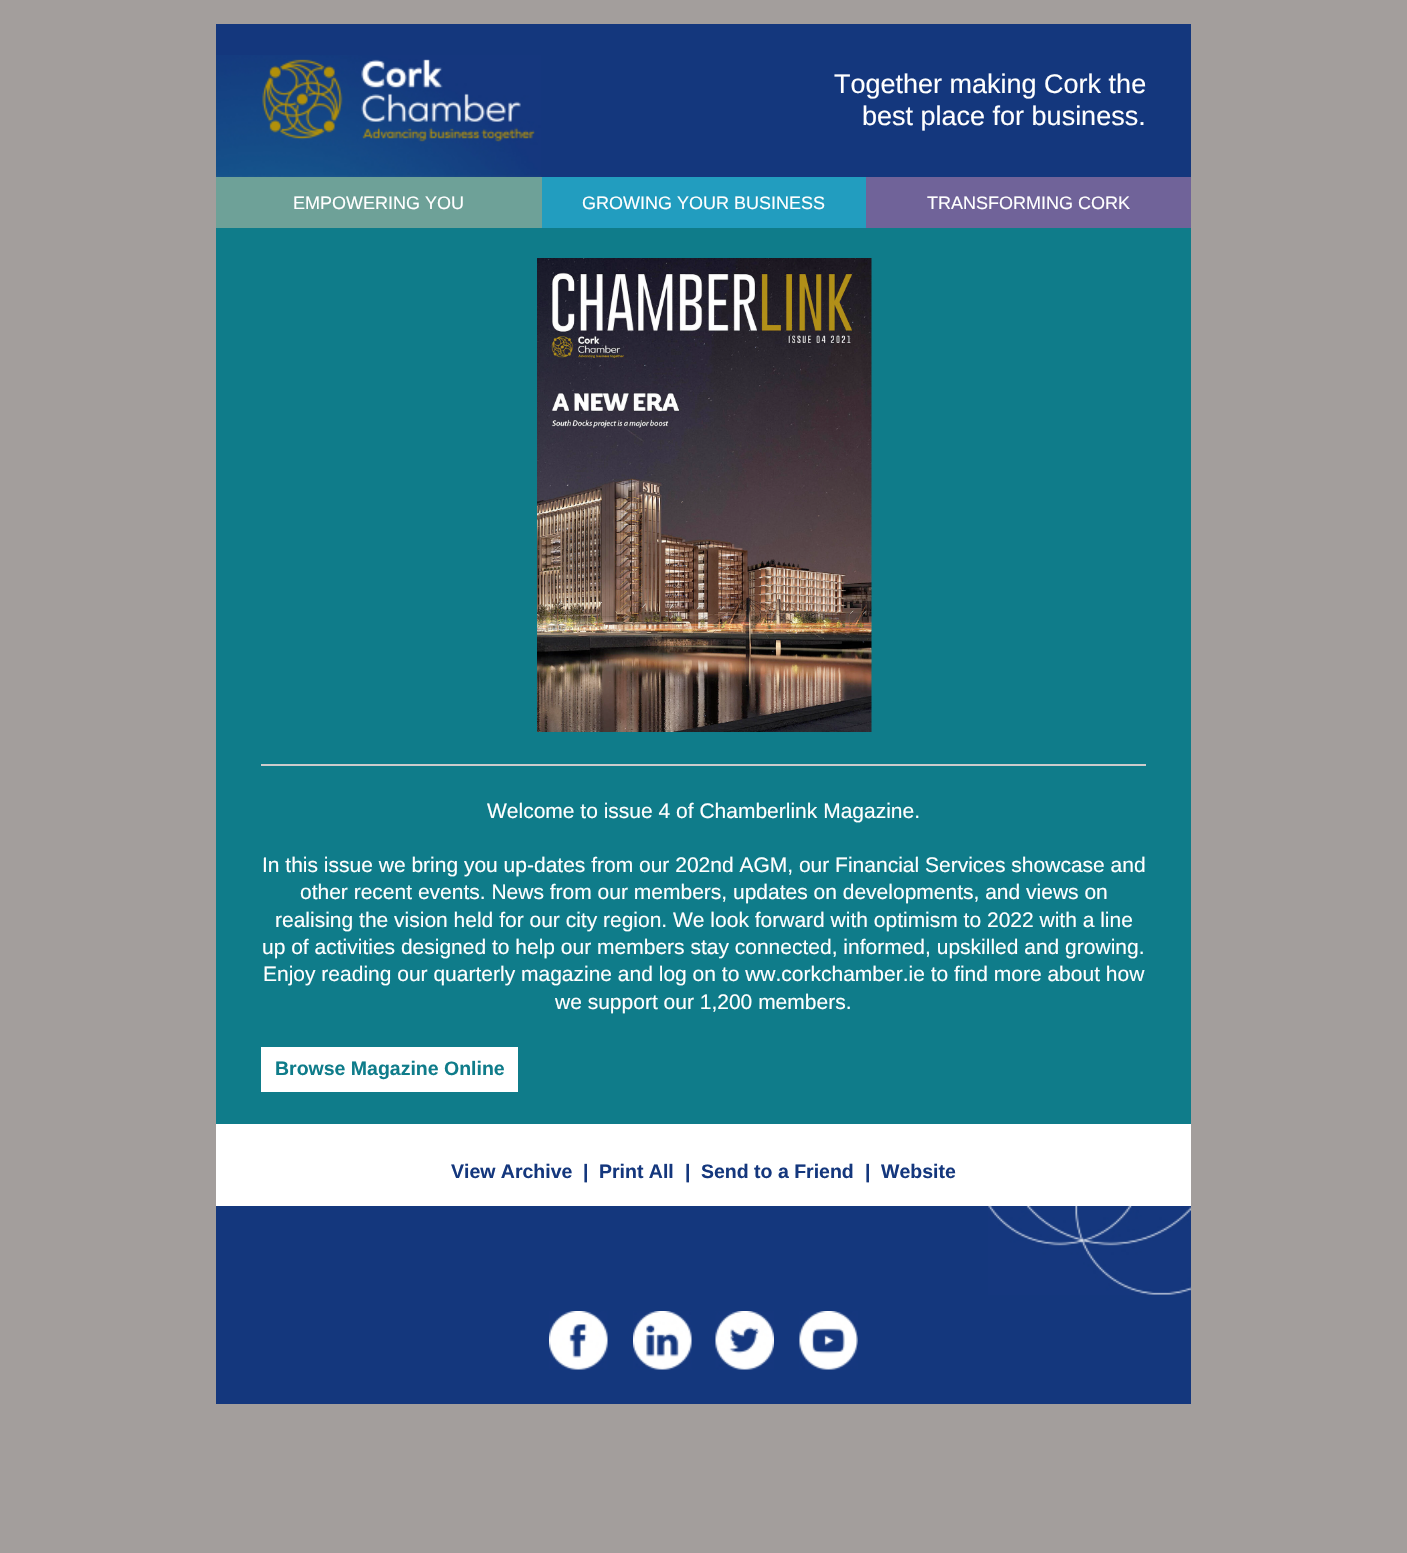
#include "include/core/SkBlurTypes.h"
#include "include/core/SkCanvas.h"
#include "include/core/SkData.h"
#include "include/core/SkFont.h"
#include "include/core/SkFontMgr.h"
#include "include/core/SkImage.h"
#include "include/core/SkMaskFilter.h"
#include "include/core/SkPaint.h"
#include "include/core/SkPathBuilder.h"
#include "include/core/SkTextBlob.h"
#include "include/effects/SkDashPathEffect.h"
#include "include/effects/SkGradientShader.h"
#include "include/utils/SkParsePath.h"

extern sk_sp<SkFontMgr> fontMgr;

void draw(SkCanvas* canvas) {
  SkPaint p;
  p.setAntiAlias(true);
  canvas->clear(SkColorSetRGB(163, 158, 156));
  p.setColor(SK_ColorWHITE);
  canvas->drawRect(SkRect::MakeLTRB(216, 1124, 1191, 1206), p);
  p.setColor(SkColorSetRGB(20, 55, 125));
  canvas->drawRect(SkRect::MakeLTRB(216, 24, 1191, 177), p);
  canvas->drawImageRect(SkImages::DeferredFromEncodedData(SkData::MakeFromFileName("images/1.png")), SkRect::MakeLTRB(216, 55, 541, 177), SkSamplingOptions());
  p.setColor(SkColorSetRGB(110, 161, 152));
  canvas->drawRect(SkRect::MakeLTRB(216, 177, 542, 228), p);
  p.setColor(SkColorSetRGB(34, 157, 191));
  canvas->drawRect(SkRect::MakeLTRB(542, 177, 866, 228), p);
  p.setColor(SkColorSetRGB(112, 99, 153));
  canvas->drawRect(SkRect::MakeLTRB(866, 177, 1191, 228), p);
  p.setColor(SkColorSetRGB(15, 124, 138));
  canvas->drawRect(SkRect::MakeLTRB(216, 228, 1191, 1124), p);
  canvas->drawImageRect(SkImages::DeferredFromEncodedData(SkData::MakeFromFileName("images/2.png")), SkRect::MakeLTRB(537, 258, 872, 732), SkSamplingOptions());
  p.setColor(SkColorSetRGB(204, 204, 204));
  canvas->drawRect(SkRect::MakeLTRB(261, 764, 1146, 766), p);
  p.setColor(SK_ColorWHITE);
  canvas->drawRect(SkRect::MakeLTRB(261, 1047, 518, 1092), p);
  p.setColor(SkColorSetRGB(20, 55, 125));
  canvas->drawRect(SkRect::MakeLTRB(216, 1206, 1191, 1404), p);
  canvas->drawImageRect(SkImages::DeferredFromEncodedData(SkData::MakeFromFileName("images/3.png")), SkRect::MakeLTRB(988, 1206, 1191, 1295), SkSamplingOptions());
  canvas->drawImageRect(SkImages::DeferredFromEncodedData(SkData::MakeFromFileName("images/4.png")), SkRect::MakeLTRB(549, 1311, 608, 1370), SkSamplingOptions());
  canvas->drawImageRect(SkImages::DeferredFromEncodedData(SkData::MakeFromFileName("images/5.png")), SkRect::MakeLTRB(633, 1311, 692, 1370), SkSamplingOptions());
  canvas->drawImageRect(SkImages::DeferredFromEncodedData(SkData::MakeFromFileName("images/6.png")), SkRect::MakeLTRB(715, 1311, 774, 1370), SkSamplingOptions());
  canvas->drawImageRect(SkImages::DeferredFromEncodedData(SkData::MakeFromFileName("images/7.png")), SkRect::MakeLTRB(799, 1311, 858, 1370), SkSamplingOptions());
  SkFont font1(fontMgr->matchFamilyStyle("Liberation Sans", SkFontStyle::Normal()), 27);
  font1.setSubpixel(true);
  p.setColor(SK_ColorWHITE);
  canvas->drawString("Together making Cork the", 834, 93, font1, p);
  canvas->drawString("best place for business.", 862, 125, font1, p);
  SkFont font2(fontMgr->matchFamilyStyle("Liberation Sans", SkFontStyle::Normal()), 18);
  font2.setSubpixel(true);
  canvas->drawString("EMPOWERING YOU", 293, 209, font2, p);
  canvas->drawString("GROWING YOUR BUSINESS", 582, 209, font2, p);
  canvas->drawString("TRANSFORMING CORK", 927, 209, font2, p);
  SkFont font3(fontMgr->matchFamilyStyle("Liberation Sans", SkFontStyle::Normal()), 21);
  font3.setSubpixel(true);
  canvas->drawString("Welcome to issue 4 of Chamberlink Magazine.", 487, 818, font3, p);
  canvas->drawString("In this issue we bring you up-dates from our 202nd AGM, our Financial Services showcase and", 262, 872, font3, p);
  canvas->drawString("other recent events. News from our members, updates on developments, and views on", 300, 899, font3, p);
  canvas->drawString("realising the vision held for our city region. We look forward with optimism to 2022 with a line", 275, 927, font3, p);
  canvas->drawString("up of activities designed to help our members stay connected, informed, upskilled and growing.", 262, 954, font3, p);
  canvas->drawString("Enjoy reading our quarterly magazine and log on to ww.corkchamber.ie to find more about how", 263, 981, font3, p);
  canvas->drawString("we support our 1,200 members.", 555, 1009, font3, p);
  SkFont font4(fontMgr->matchFamilyStyle("Liberation Sans", SkFontStyle::Bold()), 19.5f);
  font4.setSubpixel(true);
  p.setColor(SkColorSetRGB(15, 124, 138));
  canvas->drawString("Browse Magazine Online", 275, 1075, font4, p);
  p.setColor(SkColorSetRGB(20, 55, 125));
  canvas->drawString("View Archive", 451, 1178, font4, p);
  canvas->drawString("|", 583, 1178, font4, p);
  canvas->drawString("Print All", 599, 1178, font4, p);
  canvas->drawString("|", 685, 1178, font4, p);
  canvas->drawString("Send to a Friend", 701, 1178, font4, p);
  canvas->drawString("|", 865, 1178, font4, p);
  canvas->drawString("Website", 881, 1178, font4, p);
}
